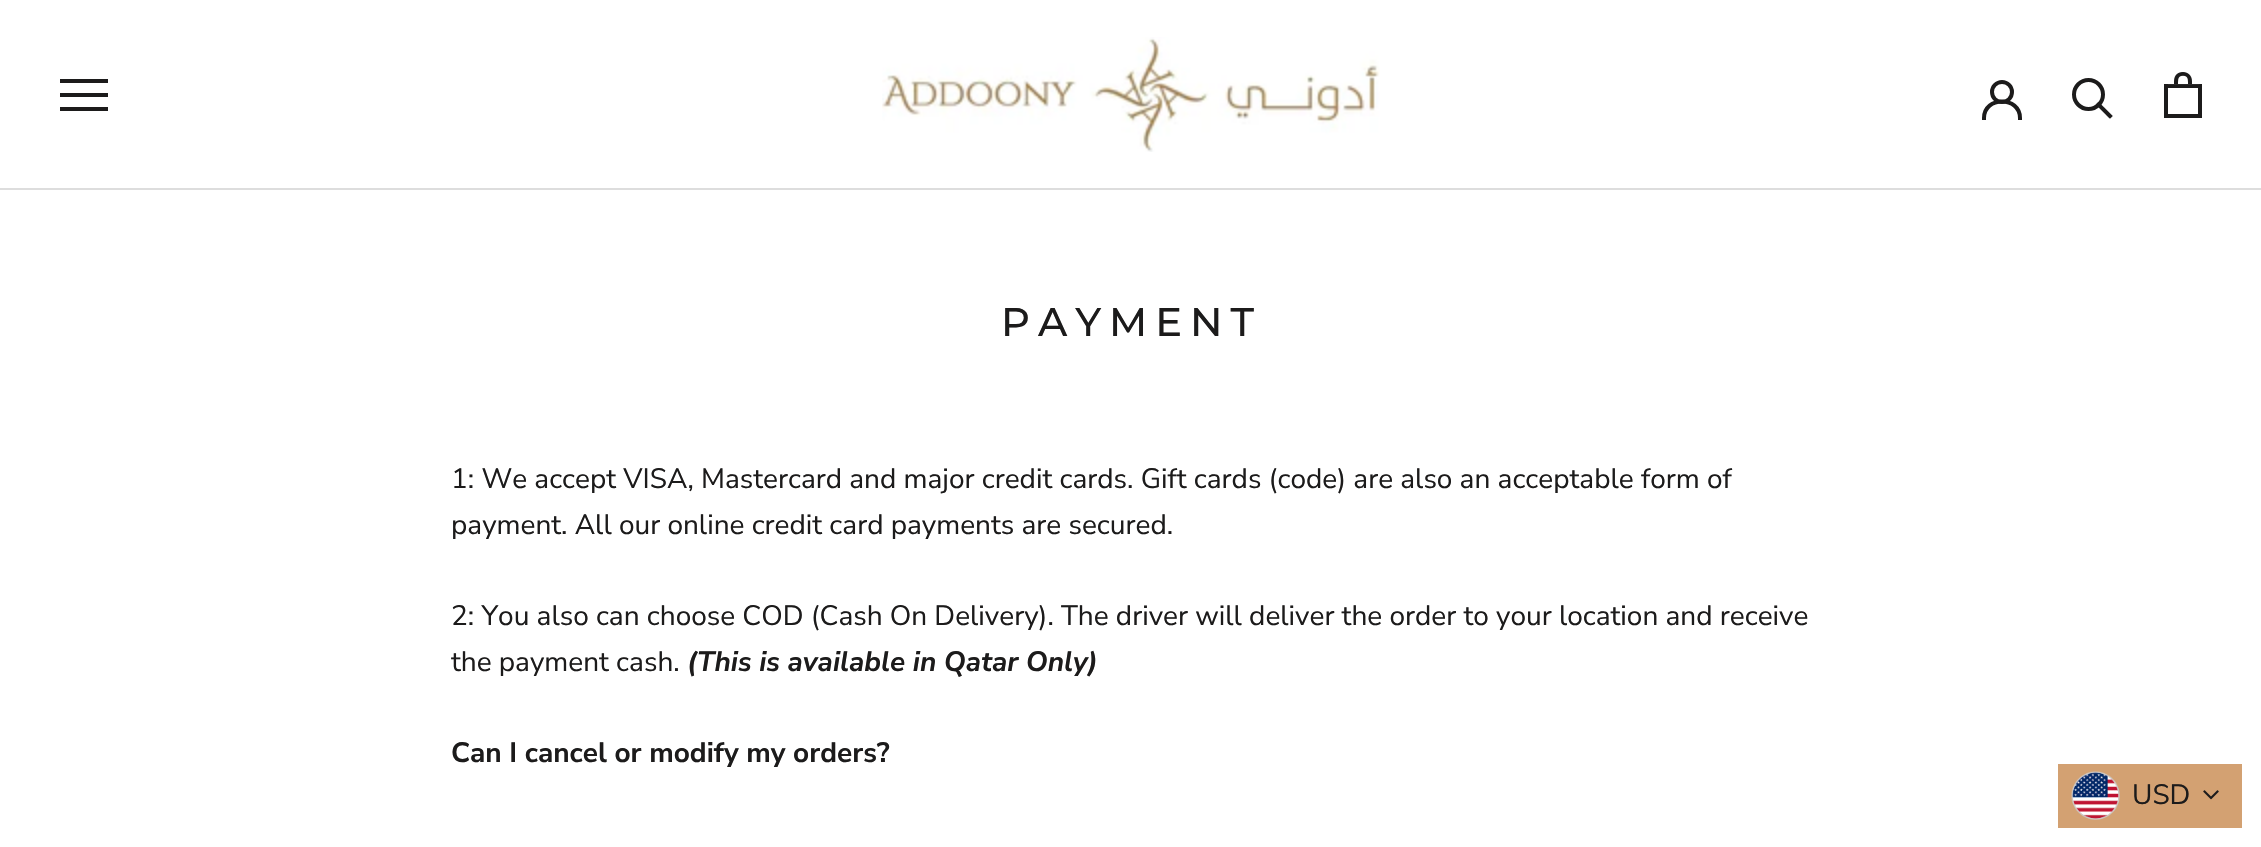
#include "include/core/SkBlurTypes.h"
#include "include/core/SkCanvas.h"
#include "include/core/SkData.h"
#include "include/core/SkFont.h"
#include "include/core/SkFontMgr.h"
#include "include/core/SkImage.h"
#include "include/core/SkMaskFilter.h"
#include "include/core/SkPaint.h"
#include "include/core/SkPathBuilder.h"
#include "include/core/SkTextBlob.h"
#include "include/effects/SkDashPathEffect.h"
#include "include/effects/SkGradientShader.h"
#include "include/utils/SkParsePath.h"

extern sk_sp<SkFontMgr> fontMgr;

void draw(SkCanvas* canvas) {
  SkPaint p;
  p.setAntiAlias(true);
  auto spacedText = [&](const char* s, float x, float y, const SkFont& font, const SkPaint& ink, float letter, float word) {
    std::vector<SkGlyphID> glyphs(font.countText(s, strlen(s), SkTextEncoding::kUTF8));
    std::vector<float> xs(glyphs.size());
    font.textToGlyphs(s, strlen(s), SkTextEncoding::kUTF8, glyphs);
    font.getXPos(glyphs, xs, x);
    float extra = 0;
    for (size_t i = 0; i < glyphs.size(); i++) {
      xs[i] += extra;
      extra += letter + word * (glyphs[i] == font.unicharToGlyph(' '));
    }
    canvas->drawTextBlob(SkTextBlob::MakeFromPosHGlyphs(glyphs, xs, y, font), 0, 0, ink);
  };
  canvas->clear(SK_ColorWHITE);
  p.setColor(SkColorSetRGB(221, 221, 221));
  canvas->drawRect(SkRect::MakeLTRB(0, 188, 2261, 190), p);
  p.setColor(SkColorSetRGB(28, 27, 27));
  canvas->drawPath(SkPathBuilder().moveTo(60, 111).lineTo(60, 107).lineTo(108, 107).lineTo(108, 111).close().moveTo(60, 93).lineTo(108, 93).lineTo(108, 97).lineTo(60, 97).close().moveTo(60, 79).lineTo(108, 79).lineTo(108, 83).lineTo(60, 83).close().detach(), p);
  canvas->drawImageRect(SkImages::DeferredFromEncodedData(SkData::MakeFromFileName("images/1.png")), SkRect::MakeLTRB(882, 37, 1380, 152), SkSamplingOptions());
  p.setStyle(SkPaint::kStroke_Style);
  p.setStrokeWidth(4);
  p.setStrokeCap(SkPaint::kSquare_Cap);
  canvas->drawPath(SkPathBuilder().moveTo(1984, 118).cubicTo(1984, 96, 2020, 96, 2020, 118).detach(), p);
  p.setStrokeCap(SkPaint::kButt_Cap);
  canvas->drawCircle(2002, 92, 10, p);
  p.setStrokeCap(SkPaint::kSquare_Cap);
  canvas->drawPath(SkPathBuilder().moveTo(2110, 116).lineTo(2098.5f, 104.5f).detach(), p);
  p.setStrokeCap(SkPaint::kButt_Cap);
  canvas->drawCircle(2088.5f, 94.5f, 14.5f, p);
  canvas->drawImageRect(SkImages::DeferredFromEncodedData(SkData::MakeFromFileName("images/2.png")), SkRect::MakeLTRB(2164, 72, 2202, 118), SkSamplingOptions());
  p.setStyle(SkPaint::kFill_Style);
  p.setColor(SkColorSetRGB(211, 161, 114));
  canvas->drawRect(SkRect::MakeLTRB(2058, 764, 2242, 828), p);
  canvas->drawImageRect(SkImages::DeferredFromEncodedData(SkData::MakeFromFileName("images/3.png")), SkRect::MakeLTRB(2071, 771, 2120, 820), SkSamplingOptions());
  canvas->drawImageRect(SkImages::DeferredFromEncodedData(SkData::MakeFromFileName("images/4.png")), SkRect::MakeLTRB(2203, 790, 2219, 800), SkSamplingOptions());
  SkFont font1(fontMgr->matchFamilyStyle("Montserrat", SkFontStyle(500, SkFontStyle::kNormal_Width, SkFontStyle::kUpright_Slant)), 40);
  font1.setSubpixel(true);
  p.setColor(SkColorSetRGB(28, 27, 27));
  spacedText("PAYMENT", 1001, 336, font1, p, 8, 0);
  SkFont font2(fontMgr->matchFamilyStyle("Nunito Sans", SkFontStyle::Normal()), 28);
  font2.setSubpixel(true);
  canvas->drawString("1: We accept VISA, Mastercard and major credit cards. Gift cards (code) are also an acceptable form of", 451, 488, font2, p);
  canvas->drawString("payment. All our online credit card payments are secured.", 451, 534, font2, p);
  canvas->drawString("2: You also can choose COD (Cash On Delivery). The driver will deliver the order to your location and receive", 451, 625, font2, p);
  canvas->drawString("the payment cash.", 451, 671, font2, p);
  SkFont font3(fontMgr->matchFamilyStyle("Nunito Sans", SkFontStyle::BoldItalic()), 28);
  font3.setSubpixel(true);
  canvas->drawString("(This is available in Qatar Only)", 687, 671, font3, p);
  SkFont font4(fontMgr->matchFamilyStyle("Nunito Sans", SkFontStyle::Bold()), 28);
  font4.setSubpixel(true);
  canvas->drawString("Can I cancel or modify my orders?", 451, 762, font4, p);
  canvas->drawString("USD", 2132, 804, font2, p);
}
